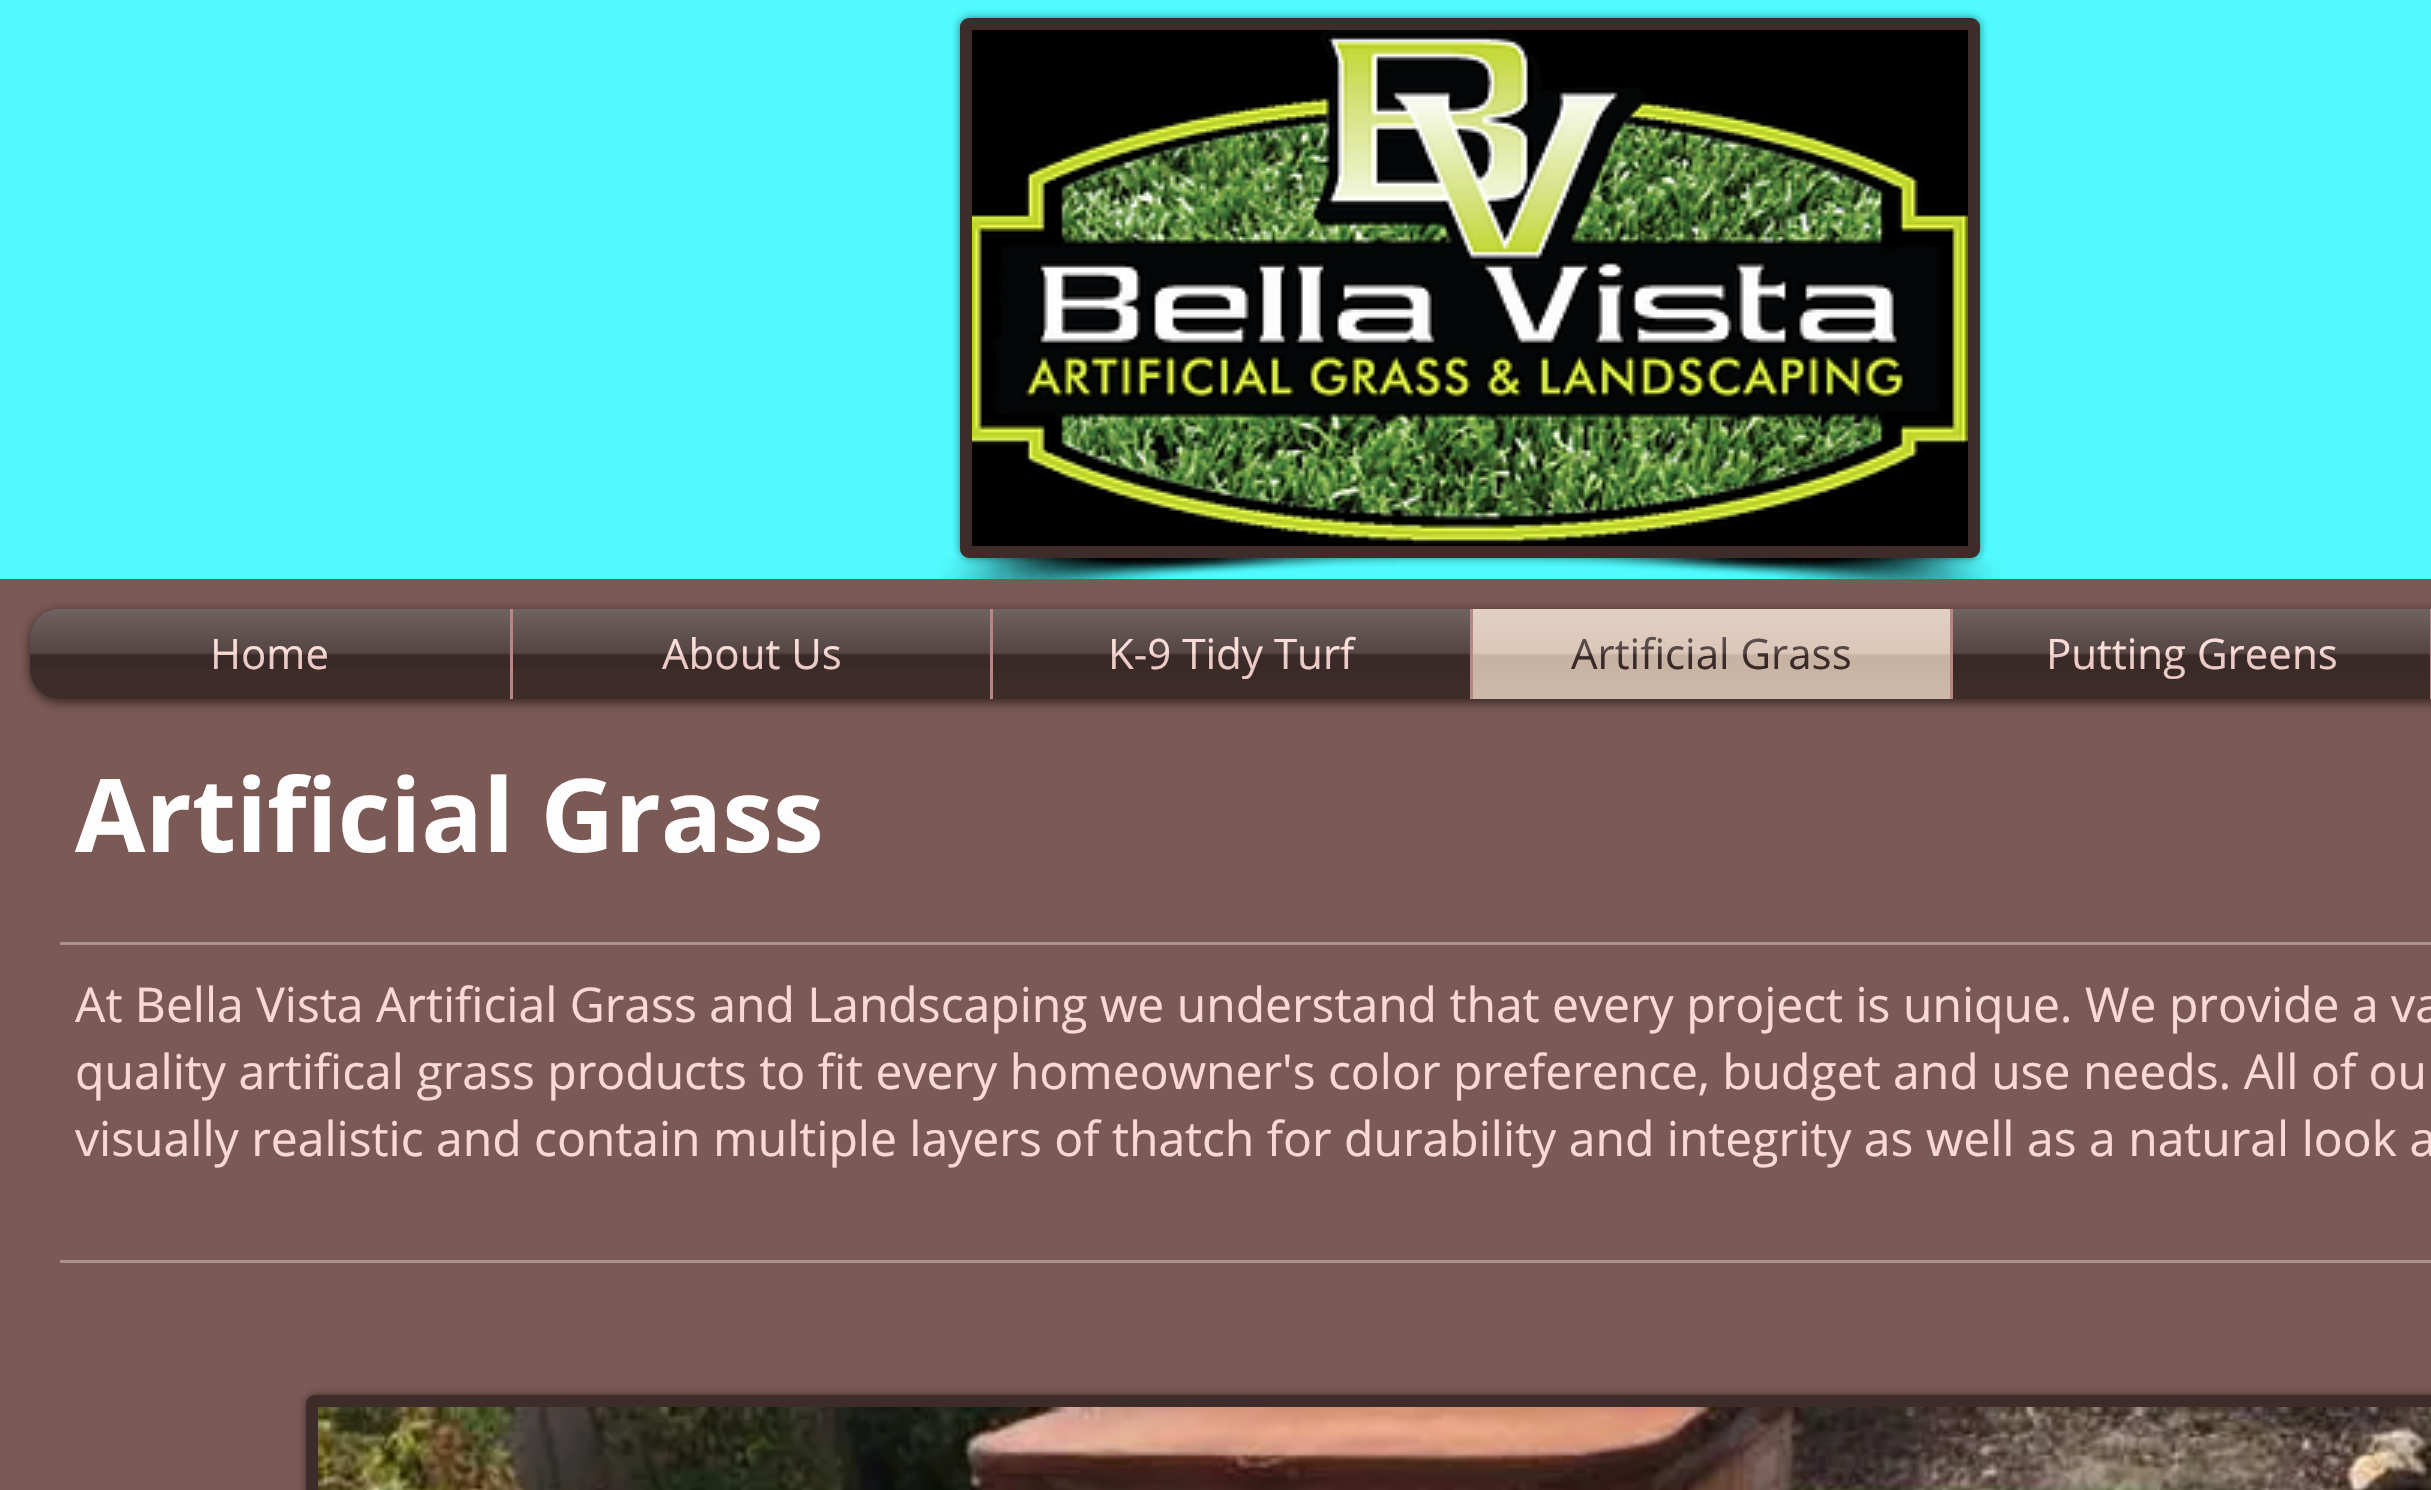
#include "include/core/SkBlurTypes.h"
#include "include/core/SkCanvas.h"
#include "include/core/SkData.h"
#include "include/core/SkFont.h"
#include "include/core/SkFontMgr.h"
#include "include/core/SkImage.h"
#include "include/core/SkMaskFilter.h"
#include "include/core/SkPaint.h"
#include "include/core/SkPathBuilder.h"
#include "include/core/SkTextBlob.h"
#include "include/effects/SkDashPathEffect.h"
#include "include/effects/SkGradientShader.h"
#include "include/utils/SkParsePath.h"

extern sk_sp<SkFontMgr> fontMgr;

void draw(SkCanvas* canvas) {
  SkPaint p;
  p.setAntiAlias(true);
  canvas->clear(SkColorSetRGB(80, 250, 254));
  p.setColor(SkColorSetARGB(128, 0, 0, 0));
  p.setMaskFilter(SkMaskFilter::MakeBlur(kNormal_SkBlurStyle, 4.5f));
  canvas->drawRoundRect(SkRect::MakeLTRB(960, 18, 1980, 558), 9, 9, p);
  p.setMaskFilter(nullptr);
  p.setStyle(SkPaint::kStroke_Style);
  p.setStrokeWidth(12);
  p.setColor(SkColorSetRGB(61, 44, 42));
  canvas->drawRoundRect(SkRect::MakeLTRB(966, 24, 1974, 552), 3, 3, p);
  canvas->drawImageRect(SkImages::DeferredFromEncodedData(SkData::MakeFromFileName("images/1.png")), SkRect::MakeLTRB(972, 30, 1968, 546), SkSamplingOptions());
  canvas->drawImageRect(SkImages::DeferredFromEncodedData(SkData::MakeFromFileName("images/2.png")), SkRect::MakeLTRB(940, 558, 1395, 579), SkSamplingOptions());
  canvas->drawImageRect(SkImages::DeferredFromEncodedData(SkData::MakeFromFileName("images/3.png")), SkRect::MakeLTRB(1545, 558, 2001, 579), SkSamplingOptions());
  p.setStyle(SkPaint::kFill_Style);
  p.setColor(SkColorSetRGB(123, 89, 85));
  canvas->drawRect(SkRect::MakeLTRB(0, 579, 2431, 1490), p);
  p.setColor(SkColorSetARGB(153, 0, 0, 0));
  p.setMaskFilter(SkMaskFilter::MakeBlur(kNormal_SkBlurStyle, 6));
  canvas->drawRoundRect(SkRect::MakeLTRB(30, 612, 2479, 702), 30, 30, p);
  p.setMaskFilter(nullptr);
  canvas->drawImageRect(SkImages::DeferredFromEncodedData(SkData::MakeFromFileName("images/4.png")), SkRect::MakeLTRB(30, 609, 60, 639), SkSamplingOptions());
  p.setColor(SkColorSetRGB(61, 44, 42));
  canvas->drawPath(SkPathBuilder().moveTo(60, 609).lineTo(510, 609).lineTo(510, 699).lineTo(60, 699).cubicTo(43.5f, 699, 30, 685.5f, 30, 669).lineTo(30, 639).cubicTo(30, 622.5f, 43.5f, 609, 60, 609).close().detach(), p);
  canvas->drawRect(SkRect::MakeLTRB(513, 609, 990, 699), p);
  p.setColor(SkColorSetRGB(185, 133, 128));
  canvas->drawRect(SkRect::MakeLTRB(510, 609, 513, 699), p);
  p.setColor(SkColorSetRGB(61, 44, 42));
  canvas->drawRect(SkRect::MakeLTRB(993, 609, 1470, 699), p);
  p.setColor(SkColorSetRGB(185, 133, 128));
  canvas->drawRect(SkRect::MakeLTRB(990, 609, 993, 699), p);
  p.setColor(SkColorSetRGB(215, 192, 175));
  canvas->drawRect(SkRect::MakeLTRB(1473, 609, 1950, 699), p);
  p.setColor(SkColorSetRGB(185, 133, 128));
  canvas->drawRect(SkRect::MakeLTRB(1470, 609, 1473, 699), p);
  p.setColor(SkColorSetRGB(61, 44, 42));
  canvas->drawRect(SkRect::MakeLTRB(1953, 609, 2430, 699), p);
  p.setColor(SkColorSetRGB(185, 133, 128));
  canvas->drawRect(SkRect::MakeLTRB(1950, 609, 1953, 699), p);
  canvas->drawRect(SkRect::MakeLTRB(2430, 609, 2431, 699), p);
  p.setColor(SkColorSetRGB(169, 146, 144));
  canvas->drawRect(SkRect::MakeLTRB(60, 942, 2431, 945), p);
  canvas->drawRect(SkRect::MakeLTRB(60, 1260, 2431, 1263), p);
  p.setColor(SkColorSetARGB(128, 0, 0, 0));
  p.setMaskFilter(SkMaskFilter::MakeBlur(kNormal_SkBlurStyle, 4.5f));
  canvas->drawRoundRect(SkRect::MakeLTRB(306, 1395, 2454, 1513), 9, 9, p);
  p.setMaskFilter(nullptr);
  p.setStyle(SkPaint::kStroke_Style);
  p.setColor(SkColorSetRGB(61, 44, 42));
  canvas->drawRoundRect(SkRect::MakeLTRB(312, 1401, 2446, 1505), 3, 3, p);
  canvas->drawImageRect(SkImages::DeferredFromEncodedData(SkData::MakeFromFileName("images/10.png")), SkRect::MakeLTRB(318, 1407, 2431, 1490), SkSamplingOptions());
  SkFont font1(fontMgr->matchFamilyStyle("Open Sans", SkFontStyle::Normal()), 42);
  font1.setSubpixel(true);
  p.setStyle(SkPaint::kFill_Style);
  p.setColor(SkColorSetRGB(251, 216, 212));
  canvas->drawString("Home", 210, 669, font1, p);
  canvas->drawImageRect(SkImages::DeferredFromEncodedData(SkData::MakeFromFileName("images/5.png")), SkRect::MakeLTRB(30, 609, 510, 670), SkSamplingOptions());
  canvas->drawString("About Us", 662, 669, font1, p);
  canvas->drawImageRect(SkImages::DeferredFromEncodedData(SkData::MakeFromFileName("images/6.png")), SkRect::MakeLTRB(513, 609, 990, 670), SkSamplingOptions());
  canvas->drawString("K-9 Tidy Turf", 1108, 669, font1, p);
  canvas->drawImageRect(SkImages::DeferredFromEncodedData(SkData::MakeFromFileName("images/7.png")), SkRect::MakeLTRB(993, 609, 1470, 680), SkSamplingOptions());
  p.setColor(SkColorSetRGB(61, 44, 42));
  canvas->drawString("Artificial Grass", 1571, 669, font1, p);
  canvas->drawImageRect(SkImages::DeferredFromEncodedData(SkData::MakeFromFileName("images/8.png")), SkRect::MakeLTRB(1473, 609, 1950, 699), SkSamplingOptions());
  p.setColor(SkColorSetRGB(251, 216, 212));
  canvas->drawString("Putting Greens", 2046, 669, font1, p);
  canvas->drawImageRect(SkImages::DeferredFromEncodedData(SkData::MakeFromFileName("images/9.png")), SkRect::MakeLTRB(1953, 609, 2430, 680), SkSamplingOptions());
  SkFont font2(fontMgr->matchFamilyStyle("Open Sans", SkFontStyle::Bold()), 102);
  font2.setSubpixel(true);
  p.setColor(SkColorSetRGB(254, 253, 253));
  canvas->drawString("Artificial Grass", 75, 852, font2, p);
  SkFont font3(fontMgr->matchFamilyStyle("Open Sans", SkFontStyle::Normal()), 48);
  font3.setSubpixel(true);
  p.setColor(SkColorSetRGB(251, 216, 212));
  canvas->drawString("At Bella Vista Artificial Grass and Landscaping we understand that every project is unique. We provide a va", 75, 1022, font3, p);
  canvas->drawString("quality artifical grass products to fit every homeowner's color preference, budget and use needs. All of ou", 75, 1089, font3, p);
  canvas->drawString("visually realistic and contain multiple layers of thatch for durability and integrity as well as a natural look a", 75, 1156, font3, p);
}
